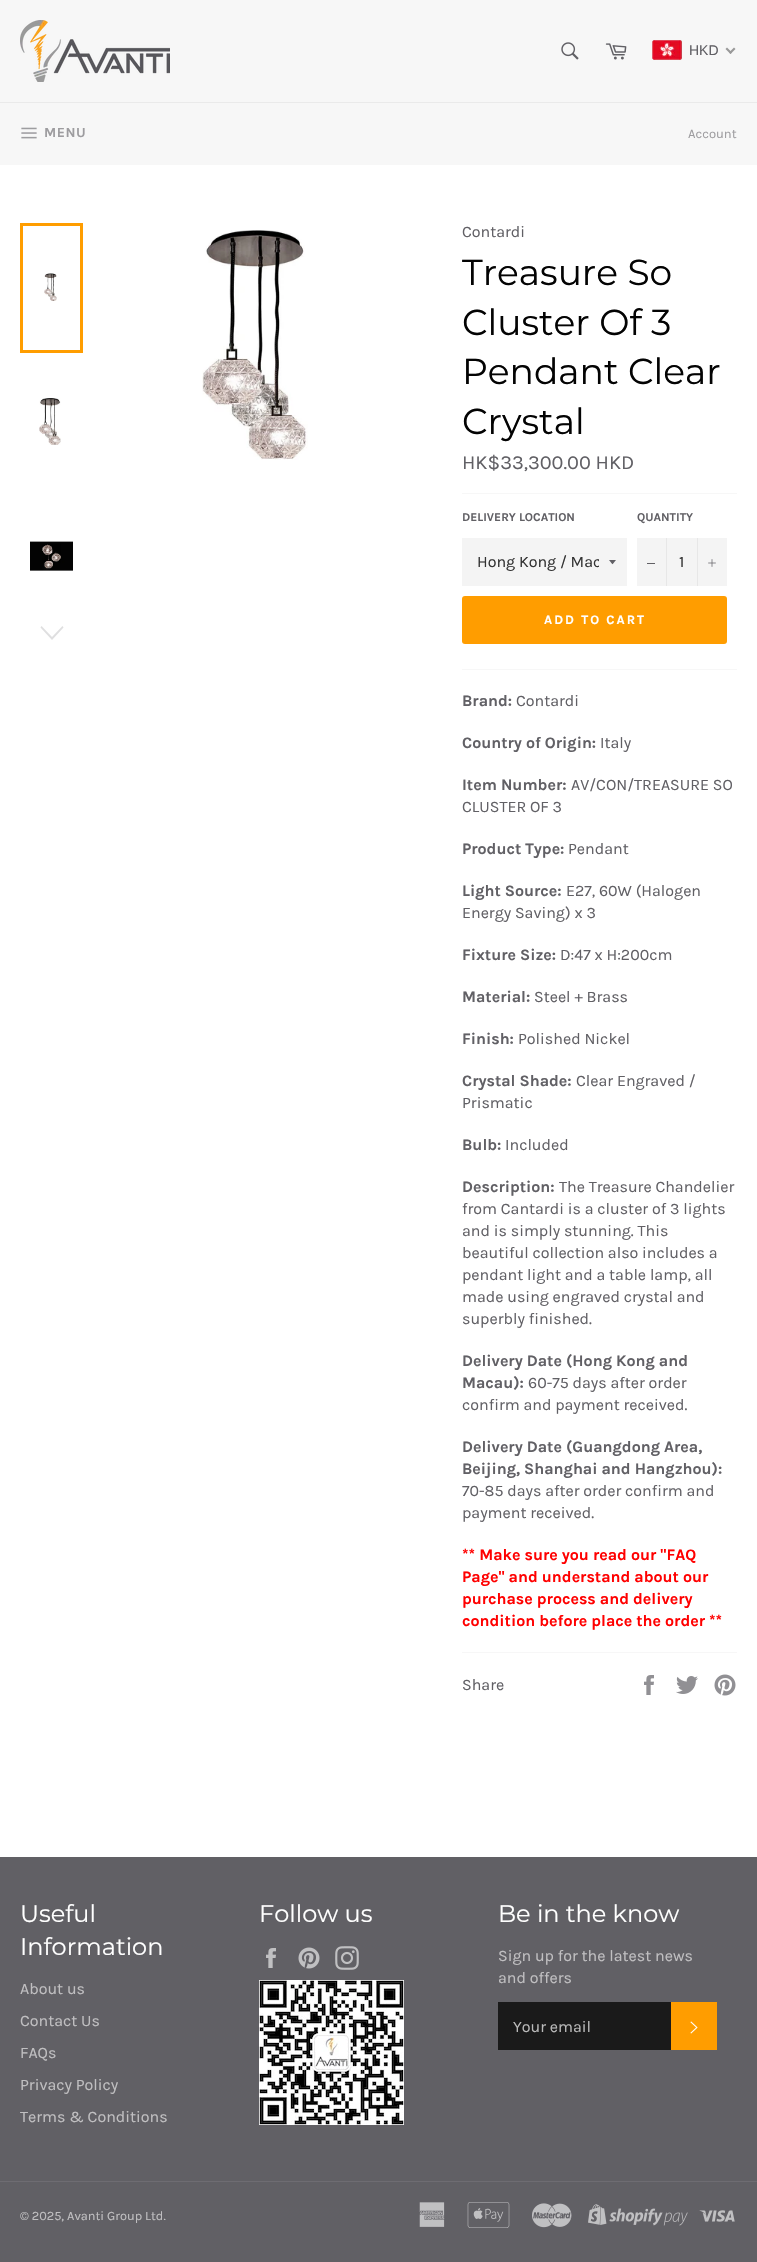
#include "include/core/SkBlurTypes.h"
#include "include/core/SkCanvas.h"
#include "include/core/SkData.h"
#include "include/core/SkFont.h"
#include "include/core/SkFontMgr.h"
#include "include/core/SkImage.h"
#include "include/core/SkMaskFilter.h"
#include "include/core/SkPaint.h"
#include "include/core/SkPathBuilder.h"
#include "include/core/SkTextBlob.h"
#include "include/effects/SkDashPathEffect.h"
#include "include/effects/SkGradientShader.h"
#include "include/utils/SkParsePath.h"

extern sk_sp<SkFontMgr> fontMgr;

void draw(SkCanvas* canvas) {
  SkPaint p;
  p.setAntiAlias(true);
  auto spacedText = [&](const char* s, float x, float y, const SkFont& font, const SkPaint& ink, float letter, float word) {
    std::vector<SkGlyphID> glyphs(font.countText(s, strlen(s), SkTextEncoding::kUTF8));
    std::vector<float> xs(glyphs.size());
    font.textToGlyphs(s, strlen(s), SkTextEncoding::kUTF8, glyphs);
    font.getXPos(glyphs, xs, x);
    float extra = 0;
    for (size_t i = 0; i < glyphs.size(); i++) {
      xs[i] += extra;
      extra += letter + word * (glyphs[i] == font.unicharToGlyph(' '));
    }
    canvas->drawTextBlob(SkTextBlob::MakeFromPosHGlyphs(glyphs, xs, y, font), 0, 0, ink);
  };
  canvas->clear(SkColorSetRGB(97, 96, 101));
  p.setColor(SkColorSetRGB(247, 247, 247));
  canvas->drawRect(SkRect::MakeLTRB(0, 0, 757, 102), p);
  canvas->drawImageRect(SkImages::DeferredFromEncodedData(SkData::MakeFromFileName("images/1.png")), SkRect::MakeLTRB(20, 20, 170, 82), SkSamplingOptions());
  canvas->drawImageRect(SkImages::DeferredFromEncodedData(SkData::MakeFromFileName("images/2.png")), SkRect::MakeLTRB(561, 42, 579, 60), SkSamplingOptions());
  canvas->drawImageRect(SkImages::DeferredFromEncodedData(SkData::MakeFromFileName("images/3.png")), SkRect::MakeLTRB(605, 43, 627, 60), SkSamplingOptions());
  canvas->drawImageRect(SkImages::DeferredFromEncodedData(SkData::MakeFromFileName("images/4.png")), SkRect::MakeLTRB(652, 40, 682, 60), SkSamplingOptions());
  p.setColor(SkColorSetRGB(153, 153, 153));
  canvas->drawPath(SkPathBuilder().moveTo(734, 47.5f).lineTo(735.5f, 49).lineTo(730.5f, 54).lineTo(729, 52.5f).close().detach(), p);
  canvas->drawPath(SkPathBuilder().moveTo(727, 47.5f).lineTo(732, 52.5f).lineTo(730.5f, 54).lineTo(725.5f, 49).close().detach(), p);
  p.setColor(SkColorSetRGB(247, 247, 247));
  canvas->drawRect(SkRect::MakeLTRB(0, 103, 757, 165), p);
  p.setColor(SkColorSetRGB(234, 234, 234));
  canvas->drawRect(SkRect::MakeLTRB(0, 102, 757, 103), p);
  canvas->drawImageRect(SkImages::DeferredFromEncodedData(SkData::MakeFromFileName("images/5.png")), SkRect::MakeLTRB(21, 127, 37, 139), SkSamplingOptions());
  p.setColor(SK_ColorWHITE);
  canvas->drawRect(SkRect::MakeLTRB(0, 165, 757, 1857), p);
  canvas->drawImageRect(SkImages::DeferredFromEncodedData(SkData::MakeFromFileName("images/6.png")), SkRect::MakeLTRB(44, 273, 57, 301), SkSamplingOptions());
  p.setStyle(SkPaint::kStroke_Style);
  p.setStrokeWidth(3);
  p.setColor(SkColorSetRGB(255, 157, 0));
  canvas->drawRect(SkRect::MakeLTRB(21.5f, 224.5f, 81.5f, 351.5f), p);
  canvas->drawImageRect(SkImages::DeferredFromEncodedData(SkData::MakeFromFileName("images/7.png")), SkRect::MakeLTRB(39, 398, 61, 445), SkSamplingOptions());
  canvas->drawImageRect(SkImages::DeferredFromEncodedData(SkData::MakeFromFileName("images/8.png")), SkRect::MakeLTRB(30, 541, 73, 571), SkSamplingOptions());
  p.setStyle(SkPaint::kFill_Style);
  p.setColor(SkColorSetRGB(223, 223, 224));
  canvas->drawPath(SkPathBuilder().moveTo(62.5f, 626).lineTo(63.5f, 627.5f).lineTo(52, 640).lineTo(40.5f, 627.5f).lineTo(41.5f, 626).lineTo(52, 637).close().detach(), p);
  canvas->drawImageRect(SkImages::DeferredFromEncodedData(SkData::MakeFromFileName("images/9.png")), SkRect::MakeLTRB(202, 230, 308, 460), SkSamplingOptions());
  p.setColor(SkColorSetRGB(247, 247, 247));
  canvas->drawRect(SkRect::MakeLTRB(462, 493, 737, 494), p);
  p.setColor(SkColorSetRGB(244, 244, 244));
  canvas->drawRect(SkRect::MakeLTRB(462, 538, 627, 586), p);
  p.setColor(SkColorSetRGB(97, 96, 101));
  canvas->drawPath(SkPathBuilder().moveTo(609, 560).cubicTo(613.5f, 565.5f, 611.5f, 565.5f, 616, 560).close().detach(), p);
  p.setColor(SkColorSetRGB(244, 244, 244));
  canvas->drawRect(SkRect::MakeLTRB(637, 538, 727, 586), p);
  p.setColor(SkColorSetRGB(231, 231, 231));
  canvas->drawRect(SkRect::MakeLTRB(666, 538, 667, 586), p);
  p.setColor(SkColorSetRGB(97, 96, 101));
  canvas->drawRect(SkRect::MakeLTRB(647, 563, 655, 564), p);
  p.setColor(SkColorSetRGB(231, 231, 231));
  canvas->drawRect(SkRect::MakeLTRB(697, 538, 698, 586), p);
  canvas->drawImageRect(SkImages::DeferredFromEncodedData(SkData::MakeFromFileName("images/10.png")), SkRect::MakeLTRB(708, 559, 716, 567), SkSamplingOptions());
  p.setColor(SkColorSetRGB(255, 157, 0));
  canvas->drawRoundRect(SkRect::MakeLTRB(462, 596, 727, 644), 3, 3, p);
  p.setColor(SkColorSetRGB(247, 247, 247));
  canvas->drawRect(SkRect::MakeLTRB(462, 669, 737, 670), p);
  canvas->drawRect(SkRect::MakeLTRB(462, 1652, 737, 1653), p);
  canvas->drawImageRect(SkImages::DeferredFromEncodedData(SkData::MakeFromFileName("images/11.png")), SkRect::MakeLTRB(644, 1675, 654, 1695), SkSamplingOptions());
  canvas->drawImageRect(SkImages::DeferredFromEncodedData(SkData::MakeFromFileName("images/12.png")), SkRect::MakeLTRB(676, 1676, 698, 1694), SkSamplingOptions());
  canvas->drawImageRect(SkImages::DeferredFromEncodedData(SkData::MakeFromFileName("images/13.png")), SkRect::MakeLTRB(714, 1674, 736, 1696), SkSamplingOptions());
  canvas->drawImageRect(SkImages::DeferredFromEncodedData(SkData::MakeFromFileName("images/14.png")), SkRect::MakeLTRB(266, 1948, 276, 1968), SkSamplingOptions());
  canvas->drawImageRect(SkImages::DeferredFromEncodedData(SkData::MakeFromFileName("images/15.png")), SkRect::MakeLTRB(298, 1947, 320, 1969), SkSamplingOptions());
  canvas->drawImageRect(SkImages::DeferredFromEncodedData(SkData::MakeFromFileName("images/16.png")), SkRect::MakeLTRB(335, 1946, 359, 1970), SkSamplingOptions());
  canvas->drawImageRect(SkImages::DeferredFromEncodedData(SkData::MakeFromFileName("images/17.png")), SkRect::MakeLTRB(259, 1980, 404, 2125), SkSamplingOptions());
  p.setColor(SkColorSetRGB(26, 26, 26));
  canvas->drawRect(SkRect::MakeLTRB(498, 2002, 671, 2050), p);
  p.setColor(SkColorSetRGB(255, 157, 0));
  canvas->drawRect(SkRect::MakeLTRB(671, 2002, 717, 2050), p);
  canvas->drawImageRect(SkImages::DeferredFromEncodedData(SkData::MakeFromFileName("images/18.png")), SkRect::MakeLTRB(690, 2021, 698, 2034), SkSamplingOptions());
  p.setColor(SkColorSetRGB(110, 108, 114));
  canvas->drawRect(SkRect::MakeLTRB(0, 2181, 757, 2182), p);
  canvas->drawImageRect(SkImages::DeferredFromEncodedData(SkData::MakeFromFileName("images/19.png")), SkRect::MakeLTRB(419, 2202, 445, 2227), SkSamplingOptions());
  canvas->drawImageRect(SkImages::DeferredFromEncodedData(SkData::MakeFromFileName("images/20.png")), SkRect::MakeLTRB(467, 2202, 510, 2228), SkSamplingOptions());
  canvas->drawImageRect(SkImages::DeferredFromEncodedData(SkData::MakeFromFileName("images/21.png")), SkRect::MakeLTRB(532, 2203, 572, 2228), SkSamplingOptions());
  canvas->drawImageRect(SkImages::DeferredFromEncodedData(SkData::MakeFromFileName("images/22.png")), SkRect::MakeLTRB(588, 2204, 688, 2226), SkSamplingOptions());
  canvas->drawImageRect(SkImages::DeferredFromEncodedData(SkData::MakeFromFileName("images/23.png")), SkRect::MakeLTRB(699, 2210, 735, 2222), SkSamplingOptions());
  SkFont font1(fontMgr->matchFamilyStyle("Liberation Sans", SkFontStyle::Normal()), 14);
  font1.setSubpixel(true);
  p.setColor(SkColorSetRGB(97, 96, 101));
  canvas->drawString("HKD", 689, 55, font1, p);
  SkFont font2(fontMgr->matchFamilyStyle("Karla", SkFontStyle::Bold()), 14);
  font2.setSubpixel(true);
  p.setColor(SkColorSetRGB(157, 156, 159));
  spacedText("MENU", 44, 137, font2, p, 0.5f, 0);
  SkFont font3(fontMgr->matchFamilyStyle("Karla", SkFontStyle::Normal()), 13);
  font3.setSubpixel(true);
  canvas->drawString("Account", 688, 138, font3, p);
  SkFont font4(fontMgr->matchFamilyStyle("Karla", SkFontStyle::Normal()), 16);
  font4.setSubpixel(true);
  p.setColor(SkColorSetRGB(97, 96, 101));
  canvas->drawString("Contardi", 462, 237, font4, p);
  SkFont font5(fontMgr->matchFamilyStyle("Montserrat", SkFontStyle::Normal()), 36);
  font5.setSubpixel(true);
  p.setColor(SkColorSetRGB(3, 3, 3));
  canvas->drawString("Treasure So", 462, 285, font5, p);
  canvas->drawString("Cluster Of 3", 462, 335, font5, p);
  canvas->drawString("Pendant Clear", 462, 384, font5, p);
  canvas->drawString("Crystal", 462, 434, font5, p);
  SkFont font6(fontMgr->matchFamilyStyle("Karla", SkFontStyle::Normal()), 20);
  font6.setSubpixel(true);
  p.setColor(SkColorSetRGB(97, 96, 101));
  canvas->drawString("HK$33,300.00 HKD", 462, 469, font6, p);
  SkFont font7(fontMgr->matchFamilyStyle("Karla", SkFontStyle::Bold()), 12);
  font7.setSubpixel(true);
  canvas->drawString("DELIVERY LOCATION", 462, 521, font7, p);
  canvas->save();
  canvas->clipRect(SkRect::MakeLTRB(477, 551, 599, 573));
  p.setColor(SkColorSetRGB(51, 51, 51));
  canvas->drawString("Hong Kong / Mac", 477, 567, font4, p);
  canvas->restore();
  p.setColor(SkColorSetRGB(97, 96, 101));
  canvas->drawString("QUANTITY", 637, 521, font7, p);
  p.setColor(SkColorSetRGB(51, 51, 51));
  canvas->drawString("1", 679, 567, font4, p);
  SkFont font8(fontMgr->matchFamilyStyle("Karla", SkFontStyle::Bold()), 13);
  font8.setSubpixel(true);
  p.setColor(SK_ColorWHITE);
  spacedText("ADD TO CART", 544, 624, font8, p, 2, 0);
  SkFont font9(fontMgr->matchFamilyStyle("Karla", SkFontStyle::Bold()), 16);
  font9.setSubpixel(true);
  p.setColor(SkColorSetRGB(97, 96, 101));
  canvas->drawString("Brand:", 462, 706, font9, p);
  canvas->drawString("Contardi", 516, 706, font4, p);
  canvas->drawString("Country of Origin:", 462, 748, font9, p);
  canvas->drawString("Italy", 600, 748, font4, p);
  canvas->drawString("Item Number:", 462, 790, font9, p);
  canvas->drawString("AV/CON/TREASURE SO", 571, 790, font4, p);
  canvas->drawString("CLUSTER OF 3", 462, 812, font4, p);
  canvas->drawString("Product Type:", 462, 854, font9, p);
  canvas->drawString("Pendant", 568, 854, font4, p);
  canvas->drawString("Light Source:", 462, 896, font9, p);
  canvas->drawString("E27, 60W (Halogen", 566, 896, font4, p);
  canvas->drawString("Energy Saving) x 3", 462, 918, font4, p);
  canvas->drawString("Fixture Size:", 462, 960, font9, p);
  canvas->drawString("D:47 x H:200cm", 560, 960, font4, p);
  canvas->drawString("Material:", 462, 1002, font9, p);
  canvas->drawString("Steel + Brass", 534, 1002, font4, p);
  canvas->drawString("Finish:", 462, 1044, font9, p);
  canvas->drawString("Polished Nickel", 518, 1044, font4, p);
  canvas->drawString("Crystal Shade:", 462, 1086, font9, p);
  canvas->drawString("Clear Engraved /", 576, 1086, font4, p);
  canvas->drawString("Prismatic", 462, 1108, font4, p);
  canvas->drawString("Bulb:", 462, 1150, font9, p);
  canvas->drawString("Included", 505, 1150, font4, p);
  canvas->drawString("Description:", 462, 1192, font9, p);
  canvas->drawString("The Treasure Chandelier", 559, 1192, font4, p);
  canvas->drawString("from Cantardi is a cluster of 3 lights", 462, 1214, font4, p);
  canvas->drawString("and is simply stunning. This", 462, 1236, font4, p);
  canvas->drawString("beautiful collection also includes a", 462, 1258, font4, p);
  canvas->drawString("pendant light and a table lamp, all", 462, 1280, font4, p);
  canvas->drawString("made using engraved crystal and", 462, 1302, font4, p);
  canvas->drawString("superbly finished.", 462, 1324, font4, p);
  canvas->drawString("Delivery Date (Hong Kong and", 462, 1366, font9, p);
  canvas->drawString("Macau):", 462, 1388, font9, p);
  canvas->drawString("60-75 days after order", 528, 1388, font4, p);
  canvas->drawString("confirm and payment received.", 462, 1410, font4, p);
  canvas->drawString("Delivery Date (Guangdong Area,", 462, 1452, font9, p);
  canvas->drawString("Beijing, Shanghai and Hangzhou):", 462, 1474, font9, p);
  canvas->drawString("70-85 days after order confirm and", 462, 1496, font4, p);
  canvas->drawString("payment received.", 462, 1518, font4, p);
  p.setColor(SkColorSetRGB(255, 0, 0));
  canvas->drawString("** Make sure you read our \"FAQ", 462, 1560, font9, p);
  canvas->drawString("Page\" and understand about our", 462, 1582, font9, p);
  canvas->drawString("purchase process and delivery", 462, 1604, font9, p);
  canvas->drawString("condition before place the order **", 462, 1626, font9, p);
  p.setColor(SkColorSetRGB(97, 96, 101));
  canvas->drawString("Share", 462, 1690, font4, p);
  SkFont font10(fontMgr->matchFamilyStyle("Montserrat", SkFontStyle::Normal()), 24);
  font10.setSubpixel(true);
  p.setColor(SK_ColorWHITE);
  canvas->drawString("Useful", 20, 1922, font10, p);
  canvas->drawString("Information", 20, 1955, font10, p);
  p.setColor(SkColorSetRGB(192, 191, 193));
  canvas->drawString("About us", 20, 1994, font4, p);
  canvas->drawString("Contact Us", 20, 2026, font4, p);
  canvas->drawString("FAQs", 20, 2058, font4, p);
  canvas->drawString("Privacy Policy", 20, 2090, font4, p);
  canvas->drawString("Terms & Conditions", 20, 2122, font4, p);
  p.setColor(SK_ColorWHITE);
  canvas->drawString("Follow us", 259, 1922, font10, p);
  canvas->drawString("Be in the know", 498, 1922, font10, p);
  p.setColor(SkColorSetRGB(192, 191, 193));
  canvas->drawString("Sign up for the latest news", 498, 1961, font4, p);
  canvas->drawString("and offers", 498, 1983, font4, p);
  p.setColor(SkColorSetRGB(186, 186, 186));
  canvas->drawString("Your email", 513, 2032, font4, p);
  SkFont font11(fontMgr->matchFamilyStyle("Karla", SkFontStyle::Normal()), 12.75f);
  font11.setSubpixel(true);
  p.setColor(SkColorSetRGB(192, 191, 193));
  canvas->drawString("© 2025, Avanti Group Ltd.", 20, 2220, font11, p);
}
